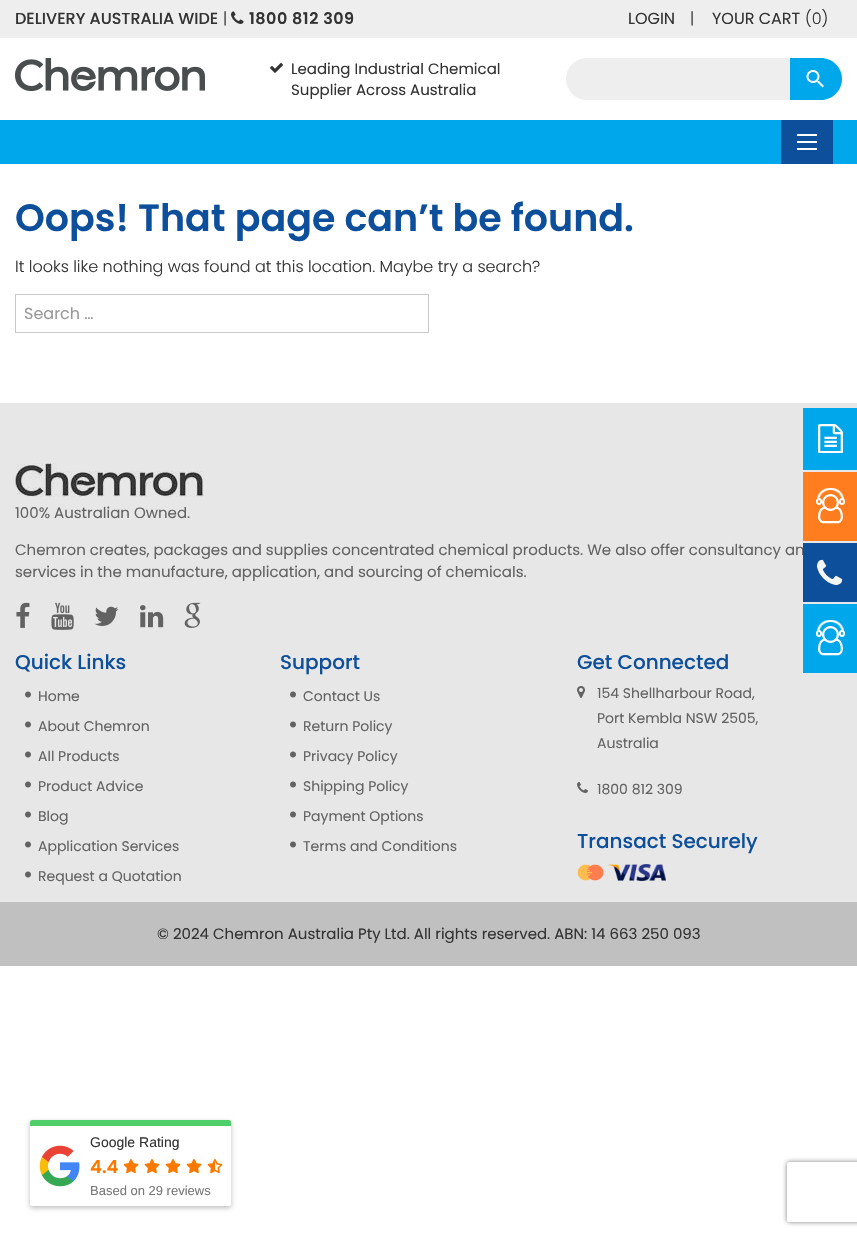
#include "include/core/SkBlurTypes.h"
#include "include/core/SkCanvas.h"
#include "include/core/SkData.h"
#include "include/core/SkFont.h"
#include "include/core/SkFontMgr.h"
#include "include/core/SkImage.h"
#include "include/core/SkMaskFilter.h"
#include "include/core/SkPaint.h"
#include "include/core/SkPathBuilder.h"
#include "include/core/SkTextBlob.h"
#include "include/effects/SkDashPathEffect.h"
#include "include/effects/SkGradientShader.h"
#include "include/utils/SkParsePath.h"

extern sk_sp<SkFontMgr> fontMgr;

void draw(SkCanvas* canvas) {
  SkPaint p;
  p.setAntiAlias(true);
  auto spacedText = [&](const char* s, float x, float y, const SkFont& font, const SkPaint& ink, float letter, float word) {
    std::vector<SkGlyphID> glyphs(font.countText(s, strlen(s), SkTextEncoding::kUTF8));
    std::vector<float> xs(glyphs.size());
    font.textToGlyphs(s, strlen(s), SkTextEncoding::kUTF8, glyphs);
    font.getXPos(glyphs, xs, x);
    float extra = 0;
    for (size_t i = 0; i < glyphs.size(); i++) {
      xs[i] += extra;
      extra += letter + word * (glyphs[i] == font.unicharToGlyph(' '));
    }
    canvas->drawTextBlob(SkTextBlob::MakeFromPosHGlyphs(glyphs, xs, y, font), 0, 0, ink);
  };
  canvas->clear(SK_ColorWHITE);
  p.setColor(SkColorSetRGB(238, 238, 238));
  canvas->drawRect(SkRect::MakeLTRB(0, 0, 857, 38), p);
  canvas->drawImageRect(SkImages::DeferredFromEncodedData(SkData::MakeFromFileName("images/1.png")), SkRect::MakeLTRB(231, 11, 244, 24), SkSamplingOptions());
  canvas->drawImageRect(SkImages::DeferredFromEncodedData(SkData::MakeFromFileName("images/2.png")), SkRect::MakeLTRB(15, 58, 205, 91), SkSamplingOptions());
  canvas->drawImageRect(SkImages::DeferredFromEncodedData(SkData::MakeFromFileName("images/3.png")), SkRect::MakeLTRB(270, 63, 283, 73), SkSamplingOptions());
  p.setColor(SkColorSetRGB(0, 168, 235));
  canvas->drawPath(SkPathBuilder().moveTo(789, 58).lineTo(821, 58).cubicTo(832.5f, 58, 842, 67.5f, 842, 79).cubicTo(842, 90.5f, 832.5f, 100, 821, 100).lineTo(789, 100).close().detach(), p);
  p.setColor(SkColorSetRGB(238, 238, 238));
  canvas->drawPath(SkPathBuilder().moveTo(587, 58).lineTo(790, 58).lineTo(790, 100).lineTo(587, 100).cubicTo(575.5f, 100, 566, 90.5f, 566, 79).cubicTo(566, 67.5f, 575.5f, 58, 587, 58).close().detach(), p);
  canvas->drawImageRect(SkImages::DeferredFromEncodedData(SkData::MakeFromFileName("images/4.png")), SkRect::MakeLTRB(806, 70, 824, 88), SkSamplingOptions());
  p.setColor(SkColorSetRGB(0, 168, 235));
  canvas->drawRect(SkRect::MakeLTRB(0, 120, 857, 164), p);
  p.setColor(SkColorSetRGB(14, 79, 156));
  canvas->drawRect(SkRect::MakeLTRB(781, 120, 833, 164), p);
  p.setColor(SkColorSetRGB(254, 254, 254));
  canvas->drawRect(SkRect::MakeLTRB(797, 148, 817, 150), p);
  canvas->drawRect(SkRect::MakeLTRB(797, 141, 817, 143), p);
  canvas->drawRect(SkRect::MakeLTRB(797, 134, 817, 136), p);
  p.setStyle(SkPaint::kStroke_Style);
  p.setStrokeWidth(1);
  p.setColor(SkColorSetRGB(202, 202, 202));
  canvas->drawRect(SkRect::MakeLTRB(15.5f, 294.5f, 428.5f, 332.5f), p);
  p.setStyle(SkPaint::kFill_Style);
  p.setColor(SkColorSetRGB(231, 231, 231));
  canvas->drawRect(SkRect::MakeLTRB(0, 403, 857, 902), p);
  canvas->drawImageRect(SkImages::DeferredFromEncodedData(SkData::MakeFromFileName("images/5.png")), SkRect::MakeLTRB(15, 463, 204, 497), SkSamplingOptions());
  canvas->drawImageRect(SkImages::DeferredFromEncodedData(SkData::MakeFromFileName("images/6.png")), SkRect::MakeLTRB(16, 602, 30, 628), SkSamplingOptions());
  canvas->drawImageRect(SkImages::DeferredFromEncodedData(SkData::MakeFromFileName("images/7.png")), SkRect::MakeLTRB(51, 602, 74, 630), SkSamplingOptions());
  canvas->drawImageRect(SkImages::DeferredFromEncodedData(SkData::MakeFromFileName("images/8.png")), SkRect::MakeLTRB(94, 606, 119, 626), SkSamplingOptions());
  canvas->drawImageRect(SkImages::DeferredFromEncodedData(SkData::MakeFromFileName("images/9.png")), SkRect::MakeLTRB(140, 605, 164, 628), SkSamplingOptions());
  canvas->drawImageRect(SkImages::DeferredFromEncodedData(SkData::MakeFromFileName("images/10.png")), SkRect::MakeLTRB(184, 602, 201, 628), SkSamplingOptions());
  canvas->drawImageRect(SkImages::DeferredFromEncodedData(SkData::MakeFromFileName("images/11.png")), SkRect::MakeLTRB(25, 691, 31, 698), SkSamplingOptions());
  canvas->drawImageRect(SkImages::DeferredFromEncodedData(SkData::MakeFromFileName("images/11.png")), SkRect::MakeLTRB(25, 721, 31, 728), SkSamplingOptions());
  canvas->drawImageRect(SkImages::DeferredFromEncodedData(SkData::MakeFromFileName("images/11.png")), SkRect::MakeLTRB(25, 751, 31, 758), SkSamplingOptions());
  canvas->drawImageRect(SkImages::DeferredFromEncodedData(SkData::MakeFromFileName("images/11.png")), SkRect::MakeLTRB(25, 781, 31, 788), SkSamplingOptions());
  canvas->drawImageRect(SkImages::DeferredFromEncodedData(SkData::MakeFromFileName("images/11.png")), SkRect::MakeLTRB(25, 811, 31, 818), SkSamplingOptions());
  canvas->drawImageRect(SkImages::DeferredFromEncodedData(SkData::MakeFromFileName("images/11.png")), SkRect::MakeLTRB(25, 841, 31, 848), SkSamplingOptions());
  canvas->drawImageRect(SkImages::DeferredFromEncodedData(SkData::MakeFromFileName("images/11.png")), SkRect::MakeLTRB(25, 871, 31, 878), SkSamplingOptions());
  canvas->drawImageRect(SkImages::DeferredFromEncodedData(SkData::MakeFromFileName("images/11.png")), SkRect::MakeLTRB(290, 691, 296, 698), SkSamplingOptions());
  canvas->drawImageRect(SkImages::DeferredFromEncodedData(SkData::MakeFromFileName("images/11.png")), SkRect::MakeLTRB(290, 721, 296, 728), SkSamplingOptions());
  canvas->drawImageRect(SkImages::DeferredFromEncodedData(SkData::MakeFromFileName("images/11.png")), SkRect::MakeLTRB(290, 751, 296, 758), SkSamplingOptions());
  canvas->drawImageRect(SkImages::DeferredFromEncodedData(SkData::MakeFromFileName("images/11.png")), SkRect::MakeLTRB(290, 781, 296, 788), SkSamplingOptions());
  canvas->drawImageRect(SkImages::DeferredFromEncodedData(SkData::MakeFromFileName("images/11.png")), SkRect::MakeLTRB(290, 811, 296, 818), SkSamplingOptions());
  canvas->drawImageRect(SkImages::DeferredFromEncodedData(SkData::MakeFromFileName("images/11.png")), SkRect::MakeLTRB(290, 841, 296, 848), SkSamplingOptions());
  canvas->drawImageRect(SkImages::DeferredFromEncodedData(SkData::MakeFromFileName("images/12.png")), SkRect::MakeLTRB(577, 686, 585, 698), SkSamplingOptions());
  canvas->drawImageRect(SkImages::DeferredFromEncodedData(SkData::MakeFromFileName("images/13.png")), SkRect::MakeLTRB(577, 782, 588, 793), SkSamplingOptions());
  canvas->drawImageRect(SkImages::DeferredFromEncodedData(SkData::MakeFromFileName("images/14.png")), SkRect::MakeLTRB(577, 864, 604, 881), SkSamplingOptions());
  canvas->drawImageRect(SkImages::DeferredFromEncodedData(SkData::MakeFromFileName("images/15.png")), SkRect::MakeLTRB(608, 864, 666, 881), SkSamplingOptions());
  p.setColor(SkColorSetRGB(192, 192, 192));
  canvas->drawRect(SkRect::MakeLTRB(0, 902, 857, 966), p);
  p.setColor(SkColorSetARGB(66, 0, 0, 0));
  p.setMaskFilter(SkMaskFilter::MakeBlur(kNormal_SkBlurStyle, 2.5f));
  canvas->drawRoundRect(SkRect::MakeLTRB(30, 1122, 231, 1208), 2, 2, p);
  p.setMaskFilter(nullptr);
  p.setColor(SkColorSetRGB(79, 206, 106));
  canvas->drawPath(SkPathBuilder().moveTo(32, 1120).lineTo(229, 1120).cubicTo(230, 1120, 231, 1121, 231, 1122).lineTo(231, 1126).lineTo(30, 1126).lineTo(30, 1122).cubicTo(30, 1121, 31, 1120, 32, 1120).close().detach(), p);
  p.setColor(SK_ColorWHITE);
  canvas->drawPath(SkPathBuilder().moveTo(30, 1126).lineTo(231, 1126).lineTo(231, 1204).cubicTo(231, 1205, 230, 1206, 229, 1206).lineTo(32, 1206).cubicTo(31, 1206, 30, 1205, 30, 1204).close().detach(), p);
  canvas->drawImageRect(SkImages::DeferredFromEncodedData(SkData::MakeFromFileName("images/16.png")), SkRect::MakeLTRB(39, 1145, 80, 1187), SkSamplingOptions());
  canvas->drawImageRect(SkImages::DeferredFromEncodedData(SkData::MakeFromFileName("images/17.png")), SkRect::MakeLTRB(123, 1159, 139, 1174), SkSamplingOptions());
  canvas->drawImageRect(SkImages::DeferredFromEncodedData(SkData::MakeFromFileName("images/17.png")), SkRect::MakeLTRB(144, 1159, 160, 1174), SkSamplingOptions());
  canvas->drawImageRect(SkImages::DeferredFromEncodedData(SkData::MakeFromFileName("images/17.png")), SkRect::MakeLTRB(165, 1159, 181, 1174), SkSamplingOptions());
  canvas->drawImageRect(SkImages::DeferredFromEncodedData(SkData::MakeFromFileName("images/17.png")), SkRect::MakeLTRB(186, 1159, 202, 1174), SkSamplingOptions());
  canvas->drawImageRect(SkImages::DeferredFromEncodedData(SkData::MakeFromFileName("images/18.png")), SkRect::MakeLTRB(207, 1159, 223, 1174), SkSamplingOptions());
  p.setColor(SkColorSetRGB(0, 168, 235));
  canvas->drawRect(SkRect::MakeLTRB(803, 408, 857, 470), p);
  canvas->drawImageRect(SkImages::DeferredFromEncodedData(SkData::MakeFromFileName("images/19.png")), SkRect::MakeLTRB(818, 424, 843, 453), SkSamplingOptions());
  p.setColor(SkColorSetRGB(255, 125, 30));
  canvas->drawRect(SkRect::MakeLTRB(803, 472, 857, 541), p);
  canvas->drawImageRect(SkImages::DeferredFromEncodedData(SkData::MakeFromFileName("images/20.png")), SkRect::MakeLTRB(816, 488, 845, 524), SkSamplingOptions());
  p.setColor(SkColorSetRGB(0, 168, 235));
  canvas->drawRect(SkRect::MakeLTRB(803, 604, 857, 673), p);
  canvas->drawImageRect(SkImages::DeferredFromEncodedData(SkData::MakeFromFileName("images/22.png")), SkRect::MakeLTRB(816, 620, 845, 656), SkSamplingOptions());
  canvas->save();
  canvas->clipPath(SkPathBuilder(SkPathFillType::kEvenOdd).moveTo(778, 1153).lineTo(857, 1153).lineTo(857, 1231).lineTo(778, 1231).close().moveTo(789, 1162).lineTo(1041, 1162).cubicTo(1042, 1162, 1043, 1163, 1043, 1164).lineTo(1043, 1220).cubicTo(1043, 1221, 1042, 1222, 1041, 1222).lineTo(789, 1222).cubicTo(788, 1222, 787, 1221, 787, 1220).lineTo(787, 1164).cubicTo(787, 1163, 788, 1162, 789, 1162).close().detach(), true);
  p.setColor(SkColorSetRGB(128, 128, 128));
  p.setMaskFilter(SkMaskFilter::MakeBlur(kNormal_SkBlurStyle, 2.5f));
  canvas->drawRoundRect(SkRect::MakeLTRB(787, 1162, 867, 1222), 2, 2, p);
  p.setMaskFilter(nullptr);
  canvas->restore();
  SkFont font1(fontMgr->matchFamilyStyle("Poppins", SkFontStyle(500, SkFontStyle::kNormal_Width, SkFontStyle::kUpright_Slant)), 16);
  font1.setSubpixel(true);
  p.setColor(SkColorSetRGB(51, 51, 51));
  canvas->drawString("DELIVERY AUSTRALIA WIDE", 15, 24, font1, p);
  SkFont font2(fontMgr->matchFamilyStyle("Poppins", SkFontStyle(300, SkFontStyle::kNormal_Width, SkFontStyle::kUpright_Slant)), 16);
  font2.setSubpixel(true);
  canvas->drawString("|", 223, 24, font2, p);
  SkFont font3(fontMgr->matchFamilyStyle("Poppins", SkFontStyle(600, SkFontStyle::kNormal_Width, SkFontStyle::kUpright_Slant)), 16);
  font3.setSubpixel(true);
  spacedText("1800 812 309", 249, 24, font3, p, 0.5f, 0);
  SkFont font4(fontMgr->matchFamilyStyle("Poppins", SkFontStyle::Normal()), 16);
  font4.setSubpixel(true);
  canvas->drawString("LOGIN", 628, 24, font4, p);
  canvas->drawString("|", 690, 24, font2, p);
  canvas->drawString("YOUR CART", 712, 24, font4, p);
  canvas->drawString("(0)", 805, 24, font2, p);
  SkFont font5(fontMgr->matchFamilyStyle("Poppins", SkFontStyle::Normal()), 15);
  font5.setSubpixel(true);
  canvas->drawString("Leading Industrial Chemical", 291, 74, font5, p);
  canvas->drawString("Supplier Across Australia", 291, 95, font5, p);
  SkFont font6(fontMgr->matchFamilyStyle("Poppins", SkFontStyle(600, SkFontStyle::kNormal_Width, SkFontStyle::kUpright_Slant)), 38);
  font6.setSubpixel(true);
  p.setColor(SkColorSetRGB(14, 79, 156));
  canvas->drawString("Oops! That page can’t be found.", 15, 231, font6, p);
  p.setColor(SkColorSetRGB(51, 51, 51));
  canvas->drawString("It looks like nothing was found at this location. Maybe try a search?", 15, 272, font2, p);
  p.setColor(SkColorSetRGB(153, 153, 153));
  canvas->drawString("Search …", 24, 319, font4, p);
  p.setColor(SkColorSetRGB(98, 98, 98));
  canvas->drawString("100% Australian Owned.", 15, 518, font5, p);
  canvas->drawString("Chemron creates, packages and supplies concentrated chemical products. We also offer consultancy an", 15, 555, font5, p);
  canvas->drawString("services in the manufacture, application, and sourcing of chemicals.", 15, 577, font5, p);
  SkFont font7(fontMgr->matchFamilyStyle("Poppins", SkFontStyle(500, SkFontStyle::kNormal_Width, SkFontStyle::kUpright_Slant)), 20);
  font7.setSubpixel(true);
  p.setColor(SkColorSetRGB(14, 79, 156));
  canvas->drawString("Quick Links", 15, 669, font7, p);
  SkFont font8(fontMgr->matchFamilyStyle("Poppins", SkFontStyle::Normal()), 14);
  font8.setSubpixel(true);
  p.setColor(SkColorSetRGB(98, 98, 98));
  canvas->drawString("Home", 38, 701, font8, p);
  canvas->drawString("About Chemron", 38, 731, font8, p);
  canvas->drawString("All Products", 38, 761, font8, p);
  canvas->drawString("Product Advice", 38, 791, font8, p);
  canvas->drawString("Blog", 38, 821, font8, p);
  canvas->drawString("Application Services", 38, 851, font8, p);
  canvas->drawString("Request a Quotation", 38, 881, font8, p);
  p.setColor(SkColorSetRGB(14, 79, 156));
  canvas->drawString("Support", 280, 669, font7, p);
  p.setColor(SkColorSetRGB(98, 98, 98));
  canvas->drawString("Contact Us", 303, 701, font8, p);
  canvas->drawString("Return Policy", 303, 731, font8, p);
  canvas->drawString("Privacy Policy", 303, 761, font8, p);
  canvas->drawString("Shipping Policy", 303, 791, font8, p);
  canvas->drawString("Payment Options", 303, 821, font8, p);
  canvas->drawString("Terms and Conditions", 303, 851, font8, p);
  p.setColor(SkColorSetRGB(14, 79, 156));
  canvas->drawString("Get Connected", 577, 669, font7, p);
  p.setColor(SkColorSetRGB(98, 98, 98));
  canvas->drawString("154 Shellharbour Road,", 597, 698, font8, p);
  canvas->drawString("Port Kembla NSW 2505,", 597, 723, font8, p);
  canvas->drawString("Australia", 597, 748, font8, p);
  canvas->drawString("1800 812 309", 597, 794, font8, p);
  p.setColor(SkColorSetRGB(14, 79, 156));
  canvas->drawString("Transact Securely", 577, 848, font7, p);
  p.setColor(SkColorSetRGB(51, 51, 51));
  canvas->drawString("© 2024 Chemron Australia Pty Ltd. All rights reserved. ABN: 14 663 250 093", 157, 939, font5, p);
  SkFont font9(fontMgr->matchFamilyStyle("Liberation Sans", SkFontStyle::Normal()), 14);
  font9.setSubpixel(true);
  canvas->drawString("Google Rating", 90, 1147, font9, p);
  SkFont font10(fontMgr->matchFamilyStyle("Poppins", SkFontStyle(600, SkFontStyle::kNormal_Width, SkFontStyle::kUpright_Slant)), 18);
  font10.setSubpixel(true);
  p.setColor(SkColorSetRGB(251, 121, 0));
  canvas->drawString("4.4", 90, 1173, font10, p);
  SkFont font11(fontMgr->matchFamilyStyle("Liberation Sans", SkFontStyle::Normal()), 13);
  font11.setSubpixel(true);
  p.setColor(SkColorSetRGB(119, 119, 119));
  canvas->drawString("Based on 29 reviews", 90, 1195, font11, p);
  p.setColor(SkColorSetRGB(14, 79, 156));
  canvas->drawRect(SkRect::MakeLTRB(803, 543, 857, 602), p);
  canvas->drawImageRect(SkImages::DeferredFromEncodedData(SkData::MakeFromFileName("images/21.png")), SkRect::MakeLTRB(817, 559, 843, 585), SkSamplingOptions());
}
